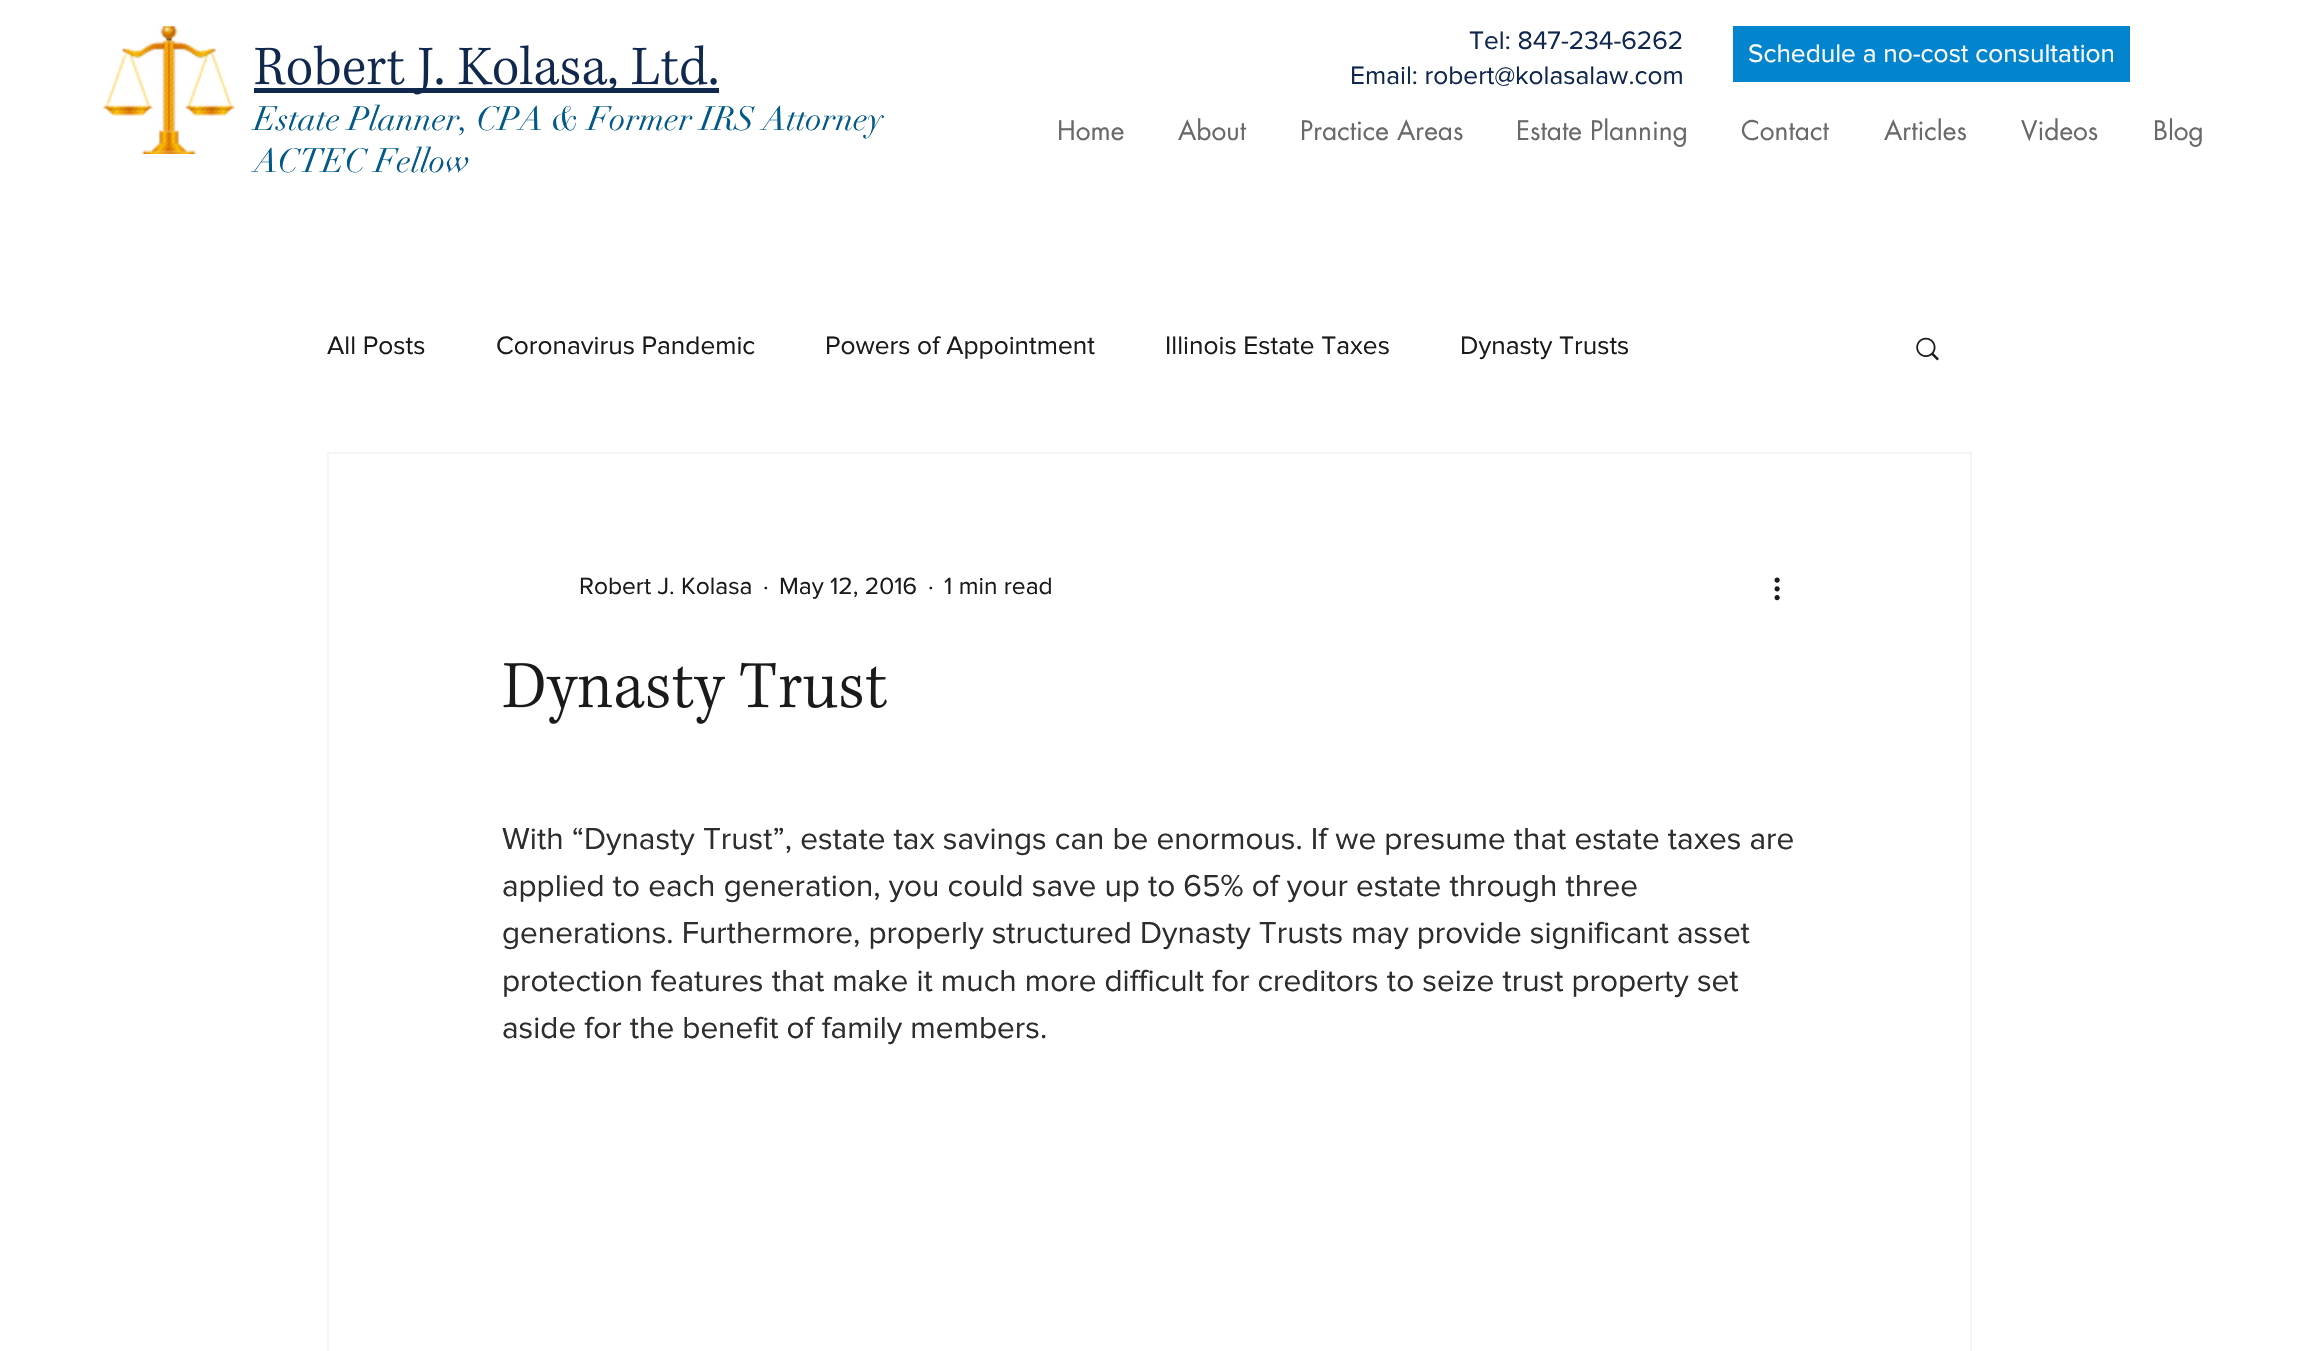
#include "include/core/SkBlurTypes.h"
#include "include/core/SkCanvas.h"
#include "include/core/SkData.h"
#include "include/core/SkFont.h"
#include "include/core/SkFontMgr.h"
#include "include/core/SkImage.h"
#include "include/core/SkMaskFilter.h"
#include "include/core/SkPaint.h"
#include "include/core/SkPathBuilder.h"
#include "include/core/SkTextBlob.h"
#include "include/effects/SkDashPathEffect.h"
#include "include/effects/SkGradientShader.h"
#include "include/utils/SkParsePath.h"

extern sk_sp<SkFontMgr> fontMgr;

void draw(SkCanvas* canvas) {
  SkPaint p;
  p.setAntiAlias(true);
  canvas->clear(SK_ColorWHITE);
  canvas->drawImageRect(SkImages::DeferredFromEncodedData(SkData::MakeFromFileName("images/1.png")), SkRect::MakeLTRB(103, 26, 235, 154), SkSamplingOptions());
  p.setColor(SkColorSetRGB(2, 133, 206));
  canvas->drawRect(SkRect::MakeLTRB(1733, 26, 2130, 82), p);
  p.setColor(SkColorSetRGB(16, 40, 77));
  canvas->drawRect(SkRect::MakeLTRB(254, 88, 719, 93), p);
  canvas->drawImageRect(SkImages::DeferredFromEncodedData(SkData::MakeFromFileName("images/2.png")), SkRect::MakeLTRB(255, 45, 717, 95), SkSamplingOptions());
  canvas->drawImageRect(SkImages::DeferredFromEncodedData(SkData::MakeFromFileName("images/3.png")), SkRect::MakeLTRB(1916, 337, 1939, 361), SkSamplingOptions());
  p.setStyle(SkPaint::kStroke_Style);
  p.setStrokeWidth(2);
  p.setColor(SkColorSetRGB(244, 245, 247));
  canvas->drawRect(SkRect::MakeLTRB(328, 453, 1971, 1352), p);
  canvas->drawImageRect(SkImages::DeferredFromEncodedData(SkData::MakeFromFileName("images/4.png")), SkRect::MakeLTRB(1774, 577, 1780, 601), SkSamplingOptions());
  canvas->drawImageRect(SkImages::DeferredFromEncodedData(SkData::MakeFromFileName("images/5.png")), SkRect::MakeLTRB(503, 662, 887, 724), SkSamplingOptions());
  SkFont font1(fontMgr->matchFamilyStyle("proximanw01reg", SkFontStyle::Normal()), 26.25f);
  font1.setSubpixel(true);
  p.setStyle(SkPaint::kFill_Style);
  p.setColor(SkColorSetRGB(16, 40, 77));
  canvas->drawString("Tel: 847-234-6262", 1469, 49, font1, p);
  p.setColor(SK_ColorWHITE);
  canvas->drawString("Schedule a no-cost consultation", 1748, 62, font1, p);
  p.setColor(SkColorSetRGB(16, 40, 77));
  canvas->drawString("Email: robert@kolasalaw.com", 1350, 84, font1, p);
  SkFont font2(fontMgr->matchFamilyStyle("didot", SkFontStyle::Normal()), 33.25f);
  font2.setSubpixel(true);
  p.setColor(SkColorSetRGB(1, 89, 137));
  canvas->drawString("Estate Planner, CPA & Former IRS Attorney", 254, 130, font2, p);
  canvas->drawString("ACTEC Fellow", 254, 172, font2, p);
  SkFont font3(fontMgr->matchFamilyStyle("futura", SkFontStyle::Normal()), 26.25f);
  font3.setSubpixel(true);
  p.setColor(SkColorSetRGB(105, 105, 105));
  canvas->drawString("Home", 1057, 140, font3, p);
  canvas->drawString("About", 1178, 140, font3, p);
  canvas->drawString("Practice Areas", 1300, 140, font3, p);
  canvas->drawString("Estate Planning", 1516, 140, font3, p);
  canvas->drawString("Contact", 1741, 140, font3, p);
  canvas->drawString("Articles", 1884, 140, font3, p);
  canvas->drawString("Videos", 2021, 140, font3, p);
  canvas->drawString("Blog", 2153, 140, font3, p);
  p.setColor(SkColorSetRGB(26, 26, 26));
  canvas->drawString("All Posts", 327, 354, font1, p);
  canvas->drawString("Coronavirus Pandemic", 496, 354, font1, p);
  canvas->drawString("Powers of Appointment", 825, 354, font1, p);
  canvas->drawString("Illinois Estate Taxes", 1165, 354, font1, p);
  canvas->drawString("Dynasty Trusts", 1460, 354, font1, p);
  SkFont font4(fontMgr->matchFamilyStyle("proximanw01reg", SkFontStyle::Normal()), 24.5f);
  font4.setSubpixel(true);
  canvas->drawString("Robert J. Kolasa", 579, 594, font4, p);
  canvas->drawString("·", 763, 594, font4, p);
  canvas->drawString("May 12, 2016", 779, 594, font4, p);
  canvas->drawString("·", 928, 594, font4, p);
  canvas->drawString("1 min read", 944, 594, font4, p);
  SkFont font5(fontMgr->matchFamilyStyle("proximanw01reg", SkFontStyle::Normal()), 31.5f);
  font5.setSubpixel(true);
  p.setColor(SkColorSetRGB(45, 45, 47));
  canvas->drawString("With “Dynasty Trust”, estate tax savings can be enormous. If we presume that estate taxes are", 502, 849, font5, p);
  canvas->drawString("applied to each generation, you could save up to 65% of your estate through three", 502, 896, font5, p);
  canvas->drawString("generations. Furthermore, properly structured Dynasty Trusts may provide significant asset", 502, 943, font5, p);
  canvas->drawString("protection features that make it much more difficult for creditors to seize trust property set", 502, 991, font5, p);
  canvas->drawString("aside for the benefit of family members.", 502, 1038, font5, p);
}
